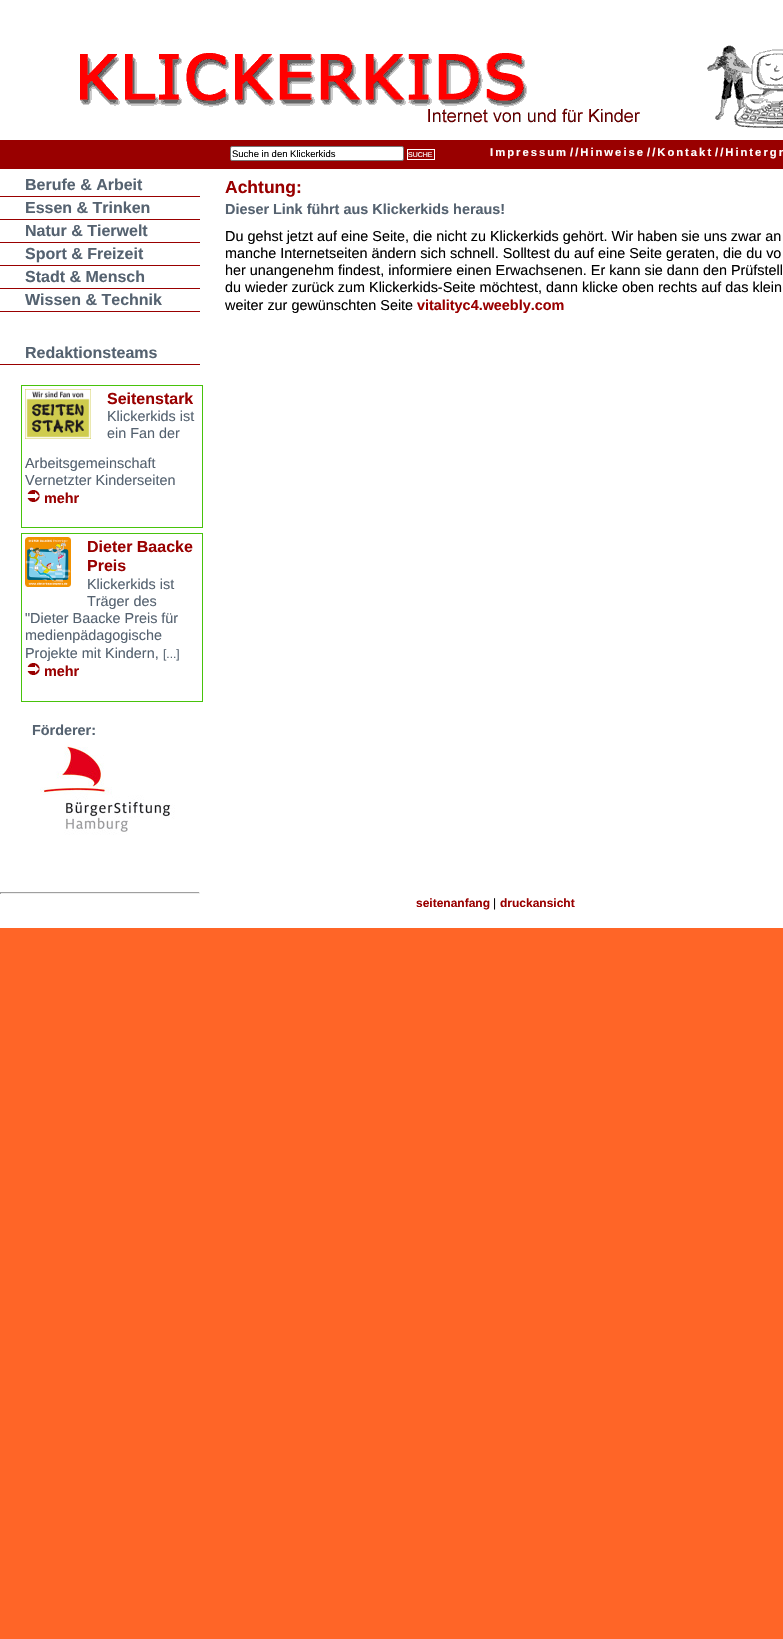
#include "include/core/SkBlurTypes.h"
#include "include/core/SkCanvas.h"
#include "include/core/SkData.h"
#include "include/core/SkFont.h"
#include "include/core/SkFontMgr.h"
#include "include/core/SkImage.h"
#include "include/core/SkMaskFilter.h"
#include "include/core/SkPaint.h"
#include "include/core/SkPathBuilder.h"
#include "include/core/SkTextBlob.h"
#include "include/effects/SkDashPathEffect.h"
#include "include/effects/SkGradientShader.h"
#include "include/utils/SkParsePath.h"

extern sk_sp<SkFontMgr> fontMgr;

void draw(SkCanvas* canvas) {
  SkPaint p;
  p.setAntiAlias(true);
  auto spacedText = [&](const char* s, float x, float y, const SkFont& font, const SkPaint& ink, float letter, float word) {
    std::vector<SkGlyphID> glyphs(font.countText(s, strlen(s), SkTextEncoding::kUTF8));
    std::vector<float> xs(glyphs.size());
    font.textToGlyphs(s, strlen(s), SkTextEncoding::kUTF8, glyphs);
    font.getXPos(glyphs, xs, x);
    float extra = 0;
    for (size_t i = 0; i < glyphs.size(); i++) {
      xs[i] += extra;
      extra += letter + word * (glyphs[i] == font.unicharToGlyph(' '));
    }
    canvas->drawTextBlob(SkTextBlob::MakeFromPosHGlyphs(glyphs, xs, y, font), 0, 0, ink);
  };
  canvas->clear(SkColorSetRGB(255, 101, 39));
  p.setColor(SK_ColorWHITE);
  canvas->drawRect(SkRect::MakeLTRB(0, 0, 783, 928), p);
  canvas->drawImageRect(SkImages::DeferredFromEncodedData(SkData::MakeFromFileName("images/1.png")), SkRect::MakeLTRB(80, 45, 783, 128), SkSamplingOptions());
  p.setColor(SkColorSetRGB(153, 0, 0));
  canvas->drawRect(SkRect::MakeLTRB(0, 140, 783, 169), p);
  p.setColor(SK_ColorWHITE);
  canvas->drawRoundRect(SkRect::MakeLTRB(230.5f, 146.5f, 403.5f, 160.5f), 1.5f, 1.5f, p);
  p.setStyle(SkPaint::kStroke_Style);
  p.setStrokeWidth(1);
  p.setColor(SkColorSetRGB(118, 118, 118));
  canvas->drawRoundRect(SkRect::MakeLTRB(230.5f, 146.5f, 403.5f, 160.5f), 1.5f, 1.5f, p);
  p.setColor(SK_ColorWHITE);
  canvas->drawRect(SkRect::MakeLTRB(407.5f, 149.5f, 434.5f, 159.5f), p);
  p.setStyle(SkPaint::kFill_Style);
  p.setColor(SkColorSetRGB(153, 0, 0));
  canvas->drawRect(SkRect::MakeLTRB(0, 196, 200, 197), p);
  canvas->drawRect(SkRect::MakeLTRB(0, 219, 200, 220), p);
  canvas->drawRect(SkRect::MakeLTRB(0, 242, 200, 243), p);
  canvas->drawRect(SkRect::MakeLTRB(0, 265, 200, 266), p);
  canvas->drawRect(SkRect::MakeLTRB(0, 288, 200, 289), p);
  canvas->drawRect(SkRect::MakeLTRB(0, 311, 200, 312), p);
  canvas->drawRect(SkRect::MakeLTRB(0, 364, 200, 365), p);
  p.setStyle(SkPaint::kStroke_Style);
  p.setColor(SkColorSetRGB(71, 195, 11));
  canvas->drawRect(SkRect::MakeLTRB(21.5f, 385.5f, 202.5f, 527.5f), p);
  canvas->drawImageRect(SkImages::DeferredFromEncodedData(SkData::MakeFromFileName("images/2.png")), SkRect::MakeLTRB(25, 389, 91, 439), SkSamplingOptions());
  canvas->drawImageRect(SkImages::DeferredFromEncodedData(SkData::MakeFromFileName("images/3.png")), SkRect::MakeLTRB(27, 490, 40, 502), SkSamplingOptions());
  canvas->drawRect(SkRect::MakeLTRB(21.5f, 533.5f, 202.5f, 701.5f), p);
  canvas->drawImageRect(SkImages::DeferredFromEncodedData(SkData::MakeFromFileName("images/4.png")), SkRect::MakeLTRB(25, 537, 71, 587), SkSamplingOptions());
  canvas->drawImageRect(SkImages::DeferredFromEncodedData(SkData::MakeFromFileName("images/3.png")), SkRect::MakeLTRB(27, 663, 40, 675), SkSamplingOptions());
  canvas->drawImageRect(SkImages::DeferredFromEncodedData(SkData::MakeFromFileName("images/5.png")), SkRect::MakeLTRB(40, 745, 175, 835), SkSamplingOptions());
  p.setStyle(SkPaint::kFill_Style);
  p.setColor(SkColorSetRGB(159, 159, 159));
  canvas->drawRect(SkRect::MakeLTRB(0, 892, 200, 893), p);
  p.setColor(SkColorSetRGB(238, 238, 238));
  canvas->drawRect(SkRect::MakeLTRB(199, 892, 200, 894), p);
  canvas->drawRect(SkRect::MakeLTRB(0, 893, 200, 894), p);
  p.setColor(SkColorSetRGB(159, 159, 159));
  canvas->drawRect(SkRect::MakeLTRB(0, 892, 1, 894), p);
  SkFont font1(fontMgr->matchFamilyStyle("Liberation Sans", SkFontStyle::Normal()), 9.5f);
  font1.setSubpixel(true);
  p.setColor(SK_ColorBLACK);
  canvas->drawString("Suche in den Klickerkids", 232, 157, font1, p);
  SkFont font2(fontMgr->matchFamilyStyle("Liberation Sans", SkFontStyle::Normal()), 7);
  font2.setSubpixel(true);
  p.setColor(SK_ColorWHITE);
  canvas->drawString("SUCHE", 408, 157, font2, p);
  SkFont font3(fontMgr->matchFamilyStyle("Liberation Sans", SkFontStyle::Bold()), 11.25f);
  font3.setSubpixel(true);
  spacedText("Impressum", 490, 156, font3, p, 2, 0);
  spacedText("//Hinweise", 570, 156, font3, p, 2, 0);
  spacedText("//Kontakt", 647, 156, font3, p, 2, 0);
  spacedText("//Hintergr", 715, 156, font3, p, 2, 0);
  SkFont font4(fontMgr->matchFamilyStyle("Liberation Sans", SkFontStyle::Bold()), 16);
  font4.setSubpixel(true);
  p.setColor(SkColorSetRGB(85, 98, 112));
  canvas->drawString("Berufe & Arbeit", 25, 190, font4, p);
  canvas->drawString("Essen & Trinken", 25, 213, font4, p);
  canvas->drawString("Natur & Tierwelt", 25, 236, font4, p);
  canvas->drawString("Sport & Freizeit", 25, 259, font4, p);
  canvas->drawString("Stadt & Mensch", 25, 282, font4, p);
  canvas->drawString("Wissen & Technik", 25, 305, font4, p);
  canvas->drawString("Redaktionsteams", 25, 358, font4, p);
  p.setColor(SkColorSetRGB(153, 0, 0));
  canvas->drawString("Seitenstark", 107, 404, font4, p);
  SkFont font5(fontMgr->matchFamilyStyle("Liberation Sans", SkFontStyle::Normal()), 14.4f);
  font5.setSubpixel(true);
  p.setColor(SkColorSetRGB(85, 98, 112));
  canvas->drawString("Klickerkids ist", 107, 421, font5, p);
  canvas->drawString("ein Fan der", 107, 438, font5, p);
  canvas->drawString("Arbeitsgemeinschaft", 25, 468, font5, p);
  canvas->drawString("Vernetzter Kinderseiten", 25, 485, font5, p);
  SkFont font6(fontMgr->matchFamilyStyle("Liberation Sans", SkFontStyle::Bold()), 14.4f);
  font6.setSubpixel(true);
  p.setColor(SkColorSetRGB(153, 0, 0));
  canvas->drawString("mehr", 44, 503, font6, p);
  canvas->drawString("Dieter Baacke", 87, 552, font4, p);
  canvas->drawString("Preis", 87, 571, font4, p);
  p.setColor(SkColorSetRGB(85, 98, 112));
  canvas->drawString("Klickerkids ist", 87, 589, font5, p);
  canvas->drawString("Träger des", 87, 606, font5, p);
  canvas->drawString("\"Dieter Baacke Preis für", 25, 623, font5, p);
  canvas->drawString("medienpädagogische", 25, 640, font5, p);
  canvas->drawString("Projekte mit Kindern,", 25, 658, font5, p);
  SkFont font7(fontMgr->matchFamilyStyle("Liberation Sans", SkFontStyle::Normal()), 12);
  font7.setSubpixel(true);
  canvas->drawString("[...]", 163, 658, font7, p);
  p.setColor(SkColorSetRGB(153, 0, 0));
  canvas->drawString("mehr", 44, 676, font6, p);
  p.setColor(SkColorSetRGB(85, 98, 112));
  canvas->drawString("Förderer:", 32, 735, font6, p);
  SkFont font8(fontMgr->matchFamilyStyle("Liberation Sans", SkFontStyle::Bold()), 17.5f);
  font8.setSubpixel(true);
  p.setColor(SkColorSetRGB(153, 0, 0));
  canvas->drawString("Achtung:", 225, 193, font8, p);
  p.setColor(SkColorSetRGB(85, 98, 112));
  canvas->drawString("Dieser Link führt aus Klickerkids heraus!", 225, 214, font6, p);
  p.setColor(SK_ColorBLACK);
  canvas->drawString("Du gehst jetzt auf eine Seite, die nicht zu Klickerkids gehört. Wir haben sie uns zwar an", 225, 241, font5, p);
  canvas->drawString("manche Internetseiten ändern sich schnell. Solltest du auf eine Seite geraten, die du vo", 225, 258, font5, p);
  canvas->drawString("her unangenehm findest, informiere einen Erwachsenen. Er kann sie dann den Prüfstell", 225, 275, font5, p);
  canvas->drawString("du wieder zurück zum Klickerkids-Seite möchtest, dann klicke oben rechts auf das klein", 225, 292, font5, p);
  canvas->drawString("weiter zur gewünschten Seite", 225, 310, font5, p);
  p.setColor(SkColorSetRGB(153, 0, 0));
  canvas->drawString("vitalityc4.weebly.com", 417, 310, font6, p);
  SkFont font9(fontMgr->matchFamilyStyle("Liberation Sans", SkFontStyle::Bold()), 12);
  font9.setSubpixel(true);
  canvas->drawString("seitenanfang", 416, 907, font9, p);
  p.setColor(SK_ColorBLACK);
  canvas->drawString("|", 493, 907, font7, p);
  p.setColor(SkColorSetRGB(153, 0, 0));
  canvas->drawString("druckansicht", 500, 907, font9, p);
}
